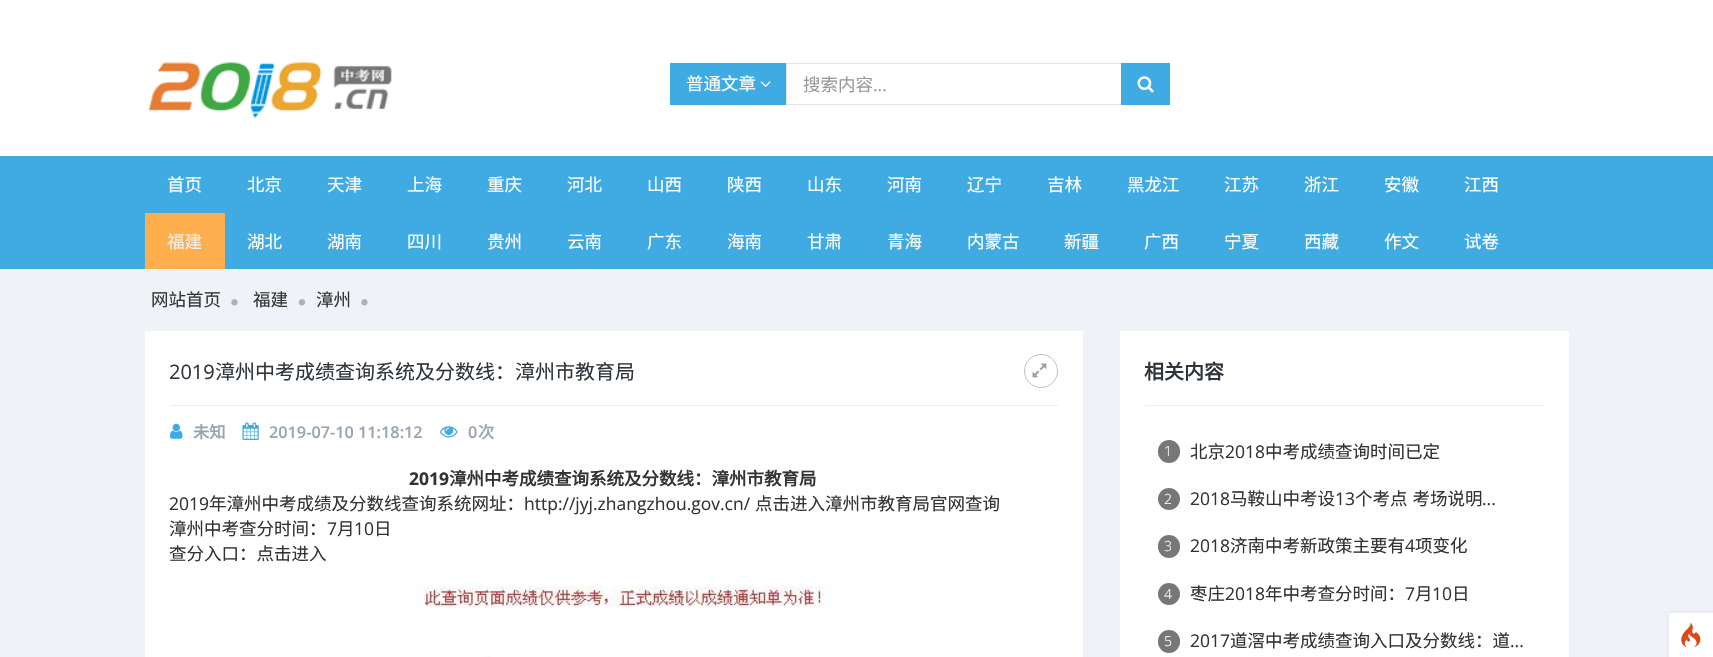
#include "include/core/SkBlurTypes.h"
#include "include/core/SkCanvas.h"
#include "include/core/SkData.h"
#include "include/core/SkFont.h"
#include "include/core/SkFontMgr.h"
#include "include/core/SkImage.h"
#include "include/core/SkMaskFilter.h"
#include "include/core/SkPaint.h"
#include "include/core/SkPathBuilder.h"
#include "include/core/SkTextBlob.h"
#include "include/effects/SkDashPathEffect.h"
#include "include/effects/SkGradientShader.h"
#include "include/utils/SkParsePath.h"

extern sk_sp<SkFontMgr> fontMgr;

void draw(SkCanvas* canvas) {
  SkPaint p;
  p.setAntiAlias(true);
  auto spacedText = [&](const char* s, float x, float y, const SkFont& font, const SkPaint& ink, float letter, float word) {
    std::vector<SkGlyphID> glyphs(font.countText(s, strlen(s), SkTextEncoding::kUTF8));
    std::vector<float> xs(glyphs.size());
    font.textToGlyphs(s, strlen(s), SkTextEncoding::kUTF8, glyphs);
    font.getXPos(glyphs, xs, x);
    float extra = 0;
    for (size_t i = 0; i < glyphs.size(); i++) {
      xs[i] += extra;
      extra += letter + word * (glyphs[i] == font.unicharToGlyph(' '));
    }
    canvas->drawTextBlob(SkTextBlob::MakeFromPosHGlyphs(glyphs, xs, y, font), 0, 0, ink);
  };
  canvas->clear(SK_ColorWHITE);
  canvas->drawImageRect(SkImages::DeferredFromEncodedData(SkData::MakeFromFileName("images/1.png")), SkRect::MakeLTRB(148, 62, 392, 118), SkSamplingOptions());
  p.setColor(SkColorSetRGB(64, 170, 226));
  canvas->drawRect(SkRect::MakeLTRB(670, 63, 786, 105), p);
  canvas->drawImageRect(SkImages::DeferredFromEncodedData(SkData::MakeFromFileName("images/2.png")), SkRect::MakeLTRB(760, 81, 771, 87), SkSamplingOptions());
  p.setStyle(SkPaint::kStroke_Style);
  p.setStrokeWidth(1);
  p.setColor(SkColorSetRGB(225, 229, 236));
  canvas->drawRect(SkRect::MakeLTRB(786.5f, 63.5f, 1122.5f, 104.5f), p);
  p.setStyle(SkPaint::kFill_Style);
  p.setColor(SkColorSetRGB(64, 170, 226));
  canvas->drawRect(SkRect::MakeLTRB(1121, 63, 1170, 105), p);
  canvas->drawImageRect(SkImages::DeferredFromEncodedData(SkData::MakeFromFileName("images/3.png")), SkRect::MakeLTRB(1137, 76, 1154, 93), SkSamplingOptions());
  canvas->drawRect(SkRect::MakeLTRB(0, 156, 1713, 269), p);
  p.setColor(SkColorSetRGB(255, 174, 78));
  canvas->drawRect(SkRect::MakeLTRB(145, 213, 225, 269), p);
  p.setColor(SkColorSetRGB(239, 243, 248));
  canvas->drawRect(SkRect::MakeLTRB(0, 269, 1713, 657), p);
  canvas->drawImageRect(SkImages::DeferredFromEncodedData(SkData::MakeFromFileName("images/4.png")), SkRect::MakeLTRB(231, 299, 238, 306), SkSamplingOptions());
  canvas->drawImageRect(SkImages::DeferredFromEncodedData(SkData::MakeFromFileName("images/5.png")), SkRect::MakeLTRB(298, 299, 306, 306), SkSamplingOptions());
  canvas->drawImageRect(SkImages::DeferredFromEncodedData(SkData::MakeFromFileName("images/4.png")), SkRect::MakeLTRB(361, 299, 368, 306), SkSamplingOptions());
  p.setColor(SK_ColorWHITE);
  canvas->drawRect(SkRect::MakeLTRB(145, 331, 1083, 657), p);
  p.setColor(SkColorSetRGB(238, 238, 238));
  canvas->drawRect(SkRect::MakeLTRB(170, 405, 1058, 406), p);
  p.setStyle(SkPaint::kStroke_Style);
  p.setColor(SkColorSetRGB(187, 194, 206));
  canvas->drawCircle(1041, 371, 16.5f, p);
  canvas->drawImageRect(SkImages::DeferredFromEncodedData(SkData::MakeFromFileName("images/6.png")), SkRect::MakeLTRB(1032, 363, 1047, 378), SkSamplingOptions());
  canvas->drawImageRect(SkImages::DeferredFromEncodedData(SkData::MakeFromFileName("images/7.png")), SkRect::MakeLTRB(170, 423, 183, 439), SkSamplingOptions());
  canvas->drawImageRect(SkImages::DeferredFromEncodedData(SkData::MakeFromFileName("images/8.png")), SkRect::MakeLTRB(242, 422, 259, 440), SkSamplingOptions());
  canvas->drawImageRect(SkImages::DeferredFromEncodedData(SkData::MakeFromFileName("images/9.png")), SkRect::MakeLTRB(440, 426, 458, 438), SkSamplingOptions());
  canvas->drawImageRect(SkImages::DeferredFromEncodedData(SkData::MakeFromFileName("images/10.png")), SkRect::MakeLTRB(414, 585, 831, 657), SkSamplingOptions());
  p.setStyle(SkPaint::kFill_Style);
  p.setColor(SK_ColorWHITE);
  canvas->drawRect(SkRect::MakeLTRB(1120, 331, 1569, 657), p);
  p.setColor(SkColorSetRGB(238, 238, 238));
  canvas->drawRect(SkRect::MakeLTRB(1145, 405, 1544, 406), p);
  p.setColor(SkColorSetRGB(119, 119, 119));
  canvas->drawRoundRect(SkRect::MakeLTRB(1158, 440, 1180, 463), 11, 11, p);
  canvas->drawCircle(1169, 499, 11, p);
  canvas->drawRoundRect(SkRect::MakeLTRB(1158, 535, 1180, 558), 11, 11, p);
  canvas->drawCircle(1169, 594, 11, p);
  canvas->drawRoundRect(SkRect::MakeLTRB(1158, 630, 1180, 653), 11, 11, p);
  p.setColor(SkColorSetRGB(223, 223, 223));
  p.setMaskFilter(SkMaskFilter::MakeBlur(kNormal_SkBlurStyle, 2.5f));
  canvas->drawRect(SkRect::MakeLTRB(1669, 613, 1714, 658), p);
  p.setMaskFilter(nullptr);
  p.setColor(SK_ColorWHITE);
  canvas->drawRect(SkRect::MakeLTRB(1669, 613, 1713, 657), p);
  canvas->drawImageRect(SkImages::DeferredFromEncodedData(SkData::MakeFromFileName("images/11.png")), SkRect::MakeLTRB(1681, 623, 1701, 648), SkSamplingOptions());
  SkFont font1(fontMgr->matchFamilyStyle("Noto Sans CJK SC", SkFontStyle::Normal()), 17.5f);
  font1.setSubpixel(true);
  canvas->drawString("普通文章", 686, 90, font1, p);
  p.setColor(SkColorSetRGB(153, 153, 153));
  canvas->drawString("搜索内容", 803, 91, font1, p);
  SkFont font2(fontMgr->matchFamilyStyle("Open Sans", SkFontStyle::Normal()), 17.5f);
  font2.setSubpixel(true);
  canvas->drawString("...", 873, 91, font2, p);
  p.setColor(SK_ColorWHITE);
  canvas->drawString("首页", 167, 191, font1, p);
  canvas->drawString("北京", 247, 191, font1, p);
  canvas->drawString("天津", 327, 191, font1, p);
  canvas->drawString("上海", 407, 191, font1, p);
  canvas->drawString("重庆", 487, 191, font1, p);
  canvas->drawString("河北", 567, 191, font1, p);
  canvas->drawString("山西", 647, 191, font1, p);
  canvas->drawString("陕西", 727, 191, font1, p);
  canvas->drawString("山东", 807, 191, font1, p);
  canvas->drawString("河南", 887, 191, font1, p);
  canvas->drawString("辽宁", 967, 191, font1, p);
  canvas->drawString("吉林", 1047, 191, font1, p);
  canvas->drawString("黑龙江", 1127, 191, font1, p);
  canvas->drawString("江苏", 1224, 191, font1, p);
  canvas->drawString("浙江", 1304, 191, font1, p);
  canvas->drawString("安徽", 1384, 191, font1, p);
  canvas->drawString("江西", 1464, 191, font1, p);
  p.setColor(SkColorSetRGB(241, 241, 241));
  canvas->drawString("福建", 167, 248, font1, p);
  p.setColor(SK_ColorWHITE);
  canvas->drawString("湖北", 247, 248, font1, p);
  canvas->drawString("湖南", 327, 248, font1, p);
  canvas->drawString("四川", 407, 248, font1, p);
  canvas->drawString("贵州", 487, 248, font1, p);
  canvas->drawString("云南", 567, 248, font1, p);
  canvas->drawString("广东", 647, 248, font1, p);
  canvas->drawString("海南", 727, 248, font1, p);
  canvas->drawString("甘肃", 807, 248, font1, p);
  canvas->drawString("青海", 887, 248, font1, p);
  canvas->drawString("内蒙古", 967, 248, font1, p);
  canvas->drawString("新疆", 1064, 248, font1, p);
  canvas->drawString("广西", 1144, 248, font1, p);
  canvas->drawString("宁夏", 1224, 248, font1, p);
  canvas->drawString("西藏", 1304, 248, font1, p);
  canvas->drawString("作文", 1384, 248, font1, p);
  canvas->drawString("试卷", 1464, 248, font1, p);
  p.setColor(SkColorSetRGB(51, 51, 51));
  canvas->drawString("网站首页", 151, 306, font1, p);
  canvas->drawString("福建", 253, 306, font1, p);
  canvas->drawString("漳州", 316, 306, font1, p);
  SkFont font3(fontMgr->matchFamilyStyle("Open Sans", SkFontStyle::Normal()), 20);
  font3.setSubpixel(true);
  p.setColor(SkColorSetRGB(47, 53, 59));
  canvas->drawString("2019", 169, 379, font3, p);
  SkFont font4(fontMgr->matchFamilyStyle("Noto Sans CJK SC", SkFontStyle::Normal()), 20);
  font4.setSubpixel(true);
  canvas->drawString("漳州中考成绩查询系统及分数线：漳州市教育局", 215, 379, font4, p);
  SkFont font5(fontMgr->matchFamilyStyle("Noto Sans CJK SC", SkFontStyle::Bold()), 16.25f);
  font5.setSubpixel(true);
  p.setColor(SkColorSetRGB(154, 165, 178));
  canvas->drawString("未知", 193, 438, font5, p);
  SkFont font6(fontMgr->matchFamilyStyle("Open Sans", SkFontStyle(600, SkFontStyle::kNormal_Width, SkFontStyle::kUpright_Slant)), 16.25f);
  font6.setSubpixel(true);
  canvas->drawString("2019-07-10 11:18:12", 269, 438, font6, p);
  canvas->drawString("0", 468, 438, font6, p);
  canvas->drawString("次", 478, 438, font5, p);
  SkFont font7(fontMgr->matchFamilyStyle("Open Sans", SkFontStyle::Bold()), 17.5f);
  font7.setSubpixel(true);
  p.setColor(SkColorSetRGB(51, 51, 51));
  canvas->drawString("2019", 409, 485, font7, p);
  SkFont font8(fontMgr->matchFamilyStyle("Noto Sans CJK SC", SkFontStyle::Bold()), 17.5f);
  font8.setSubpixel(true);
  canvas->drawString("漳州中考成绩查询系统及分数线：漳州市教育局", 449, 485, font8, p);
  canvas->drawString("2019", 169, 510, font2, p);
  canvas->drawString("年漳州中考成绩及分数线查询系统网址：", 209, 510, font1, p);
  canvas->drawString("http://jyj.zhangzhou.gov.cn/", 524, 510, font2, p);
  canvas->drawString("点击进入漳州市教育局官网查询", 755, 510, font1, p);
  canvas->drawString("漳州中考查分时间：", 169, 535, font1, p);
  canvas->drawString("7", 327, 535, font2, p);
  canvas->drawString("月", 337, 535, font1, p);
  canvas->drawString("10", 354, 535, font2, p);
  canvas->drawString("日", 374, 535, font1, p);
  canvas->drawString("查分入口：点击进入", 169, 560, font1, p);
  SkFont font9(fontMgr->matchFamilyStyle("Noto Sans CJK SC", SkFontStyle::Bold()), 20);
  font9.setSubpixel(true);
  p.setColor(SkColorSetRGB(47, 53, 59));
  canvas->drawString("相关内容", 1144, 379, font9, p);
  SkFont font10(fontMgr->matchFamilyStyle("Open Sans", SkFontStyle(300, SkFontStyle::kNormal_Width, SkFontStyle::kUpright_Slant)), 14);
  font10.setSubpixel(true);
  p.setColor(SK_ColorWHITE);
  canvas->drawString("1", 1164, 456, font10, p);
  p.setColor(SkColorSetRGB(51, 51, 51));
  canvas->drawString("北京", 1190, 458, font1, p);
  canvas->drawString("2018", 1225, 458, font2, p);
  canvas->drawString("中考成绩查询时间已定", 1265, 458, font1, p);
  p.setColor(SK_ColorWHITE);
  canvas->drawString("2", 1164, 504, font10, p);
  p.setColor(SkColorSetRGB(51, 51, 51));
  canvas->drawString("2018", 1190, 505, font2, p);
  canvas->drawString("马鞍山中考设", 1230, 505, font1, p);
  canvas->drawString("13", 1335, 505, font2, p);
  spacedText("个考点 考场说明", 1355, 505, font1, p, 0, 1);
  canvas->drawString("...", 1482, 505, font2, p);
  p.setColor(SK_ColorWHITE);
  canvas->drawString("3", 1164, 551, font10, p);
  p.setColor(SkColorSetRGB(51, 51, 51));
  canvas->drawString("2018", 1190, 552, font2, p);
  canvas->drawString("济南中考新政策主要有", 1230, 552, font1, p);
  canvas->drawString("4", 1405, 552, font2, p);
  canvas->drawString("项变化", 1415, 552, font1, p);
  p.setColor(SK_ColorWHITE);
  canvas->drawString("4", 1164, 599, font10, p);
  p.setColor(SkColorSetRGB(51, 51, 51));
  canvas->drawString("枣庄", 1190, 600, font1, p);
  canvas->drawString("2018", 1225, 600, font2, p);
  canvas->drawString("年中考查分时间：", 1265, 600, font1, p);
  canvas->drawString("7", 1405, 600, font2, p);
  canvas->drawString("月", 1415, 600, font1, p);
  canvas->drawString("10", 1432, 600, font2, p);
  canvas->drawString("日", 1452, 600, font1, p);
  p.setColor(SK_ColorWHITE);
  canvas->drawString("5", 1164, 646, font10, p);
  p.setColor(SkColorSetRGB(51, 51, 51));
  canvas->drawString("2017", 1190, 647, font2, p);
  canvas->drawString("道滘中考成绩查询入口及分数线：道", 1230, 647, font1, p);
  canvas->drawString("...", 1510, 647, font2, p);
}
